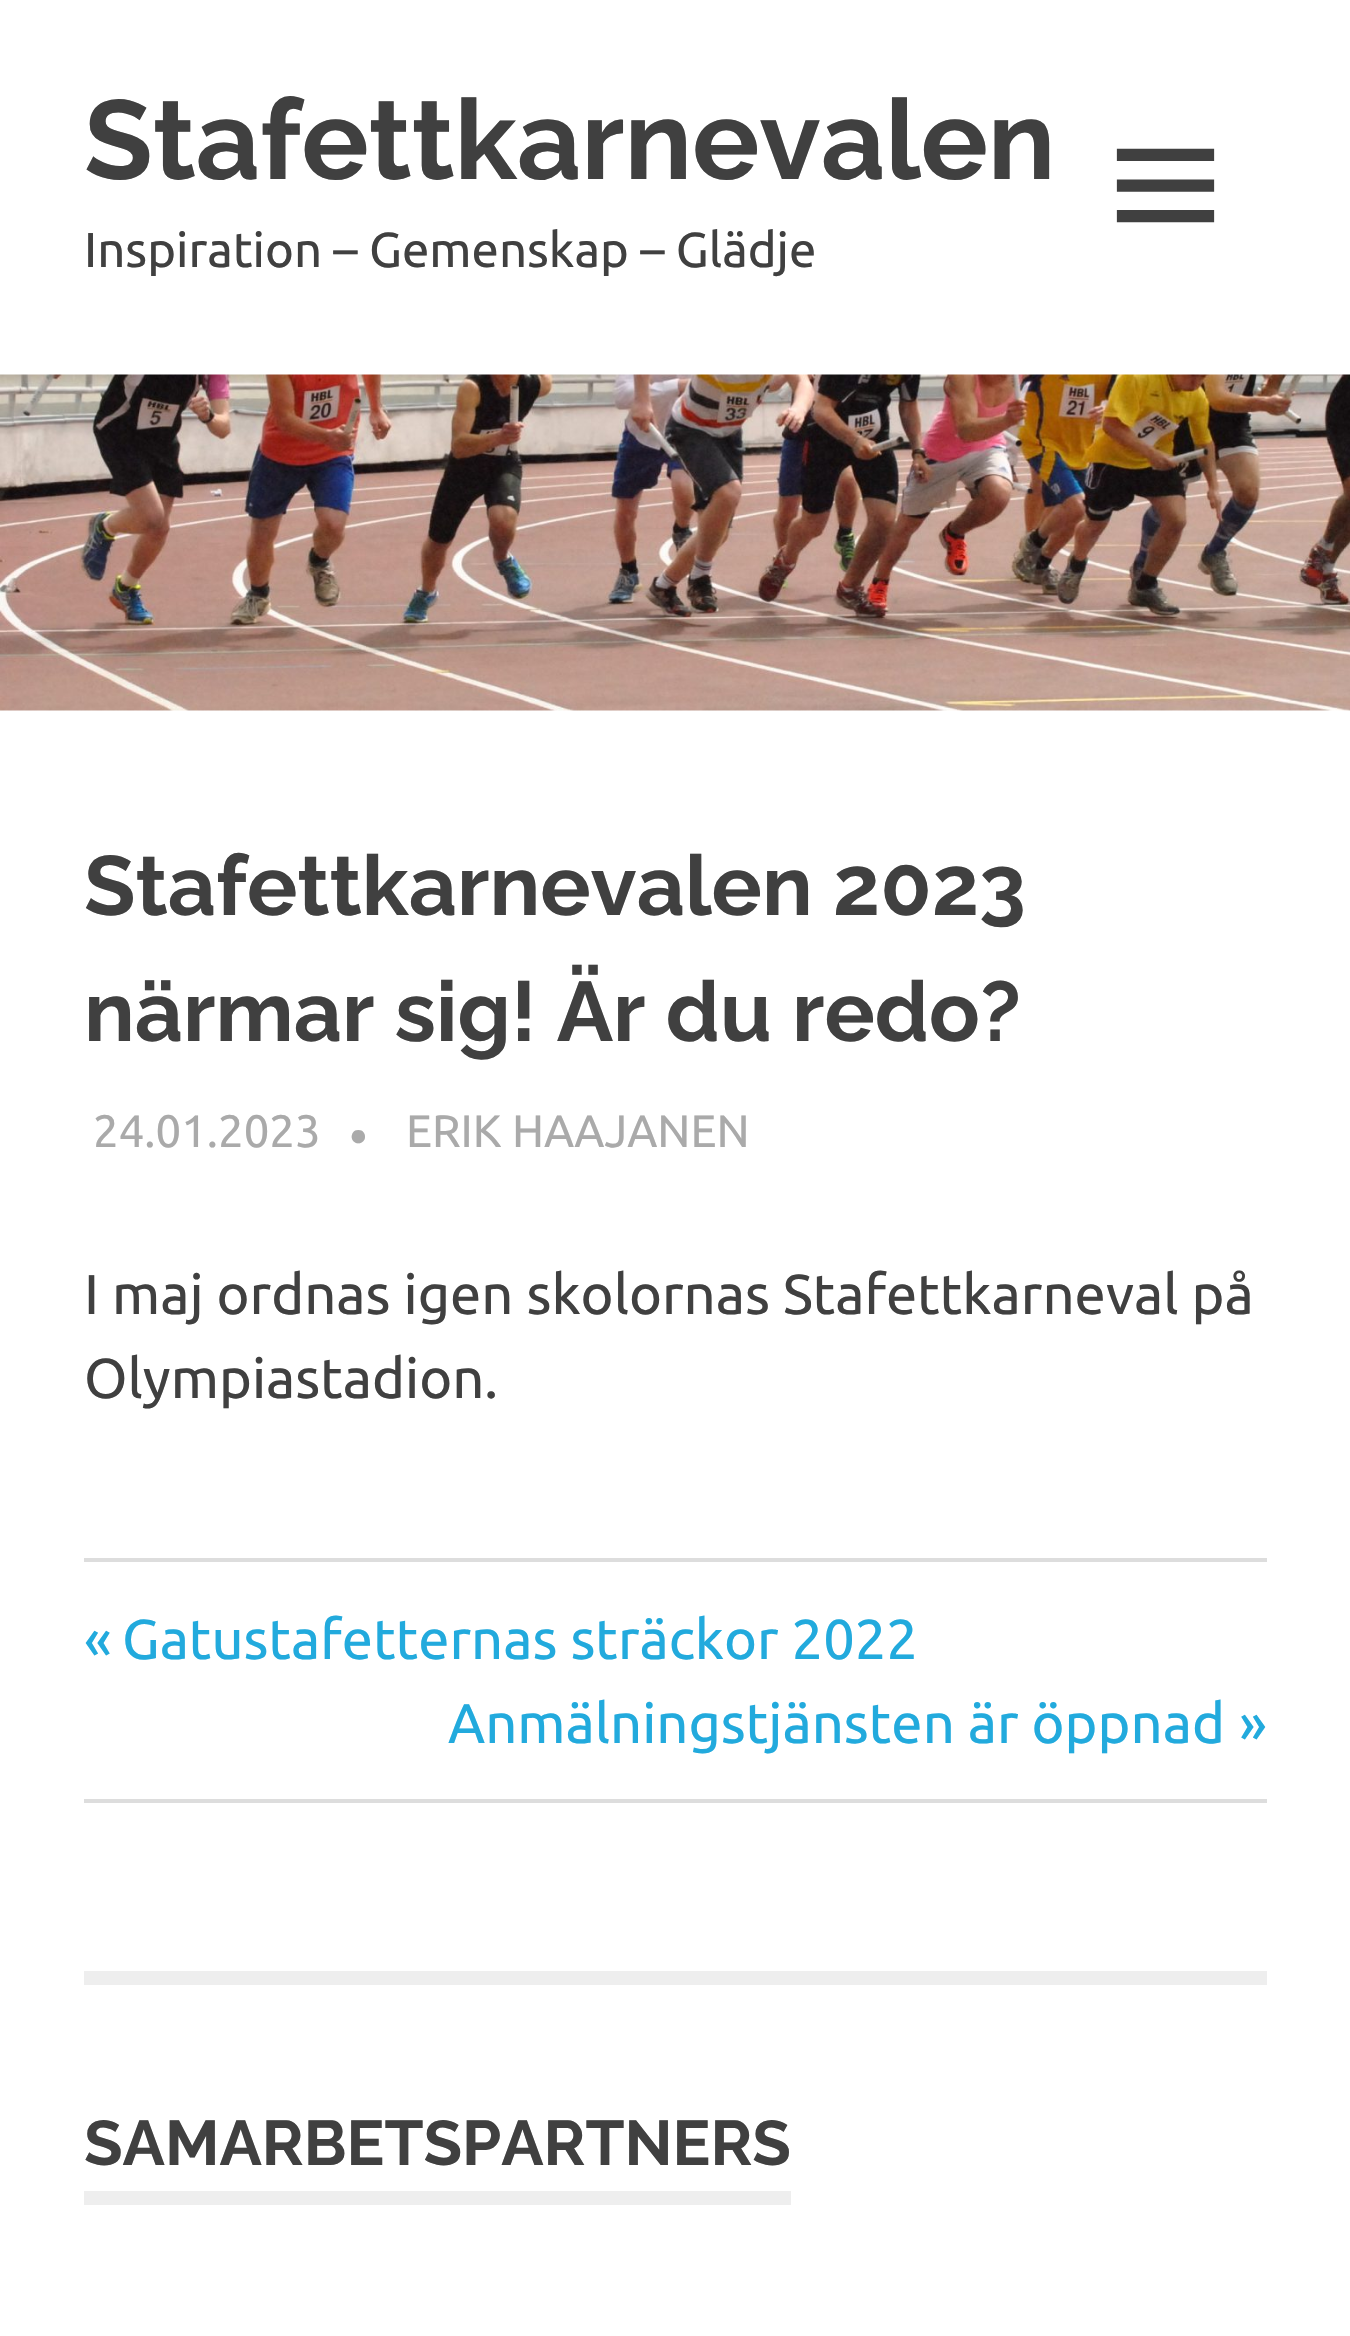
#include "include/core/SkBlurTypes.h"
#include "include/core/SkCanvas.h"
#include "include/core/SkData.h"
#include "include/core/SkFont.h"
#include "include/core/SkFontMgr.h"
#include "include/core/SkImage.h"
#include "include/core/SkMaskFilter.h"
#include "include/core/SkPaint.h"
#include "include/core/SkPathBuilder.h"
#include "include/core/SkTextBlob.h"
#include "include/effects/SkDashPathEffect.h"
#include "include/effects/SkGradientShader.h"
#include "include/utils/SkParsePath.h"

extern sk_sp<SkFontMgr> fontMgr;

void draw(SkCanvas* canvas) {
  SkPaint p;
  p.setAntiAlias(true);
  canvas->clear(SK_ColorWHITE);
  canvas->drawImageRect(SkImages::DeferredFromEncodedData(SkData::MakeFromFileName("images/1.png")), SkRect::MakeLTRB(1116, 148, 1215, 223), SkSamplingOptions());
  canvas->drawImageRect(SkImages::DeferredFromEncodedData(SkData::MakeFromFileName("images/2.png")), SkRect::MakeLTRB(0, 374, 1350, 711), SkSamplingOptions());
  p.setColor(SkColorSetRGB(221, 221, 221));
  canvas->drawRect(SkRect::MakeLTRB(84, 1558, 1267, 1562), p);
  canvas->drawRect(SkRect::MakeLTRB(84, 1799, 1267, 1803), p);
  p.setColor(SkColorSetRGB(238, 238, 238));
  canvas->drawRect(SkRect::MakeLTRB(84, 1971, 1267, 1985), p);
  canvas->drawRect(SkRect::MakeLTRB(84, 2191, 791, 2205), p);
  SkFont font1(fontMgr->matchFamilyStyle("Raleway", SkFontStyle::Bold()), 112);
  font1.setSubpixel(true);
  p.setColor(SkColorSetRGB(64, 64, 64));
  canvas->drawString("Stafettkarnevalen", 84, 179, font1, p);
  SkFont font2(fontMgr->matchFamilyStyle("Ubuntu", SkFontStyle::Normal()), 49);
  font2.setSubpixel(true);
  canvas->drawString("Inspiration – Gemenskap – Glädje", 84, 267, font2, p);
  SkFont font3(fontMgr->matchFamilyStyle("Raleway", SkFontStyle::Bold()), 84);
  font3.setSubpixel(true);
  canvas->drawString("Stafettkarnevalen 2023", 84, 915, font3, p);
  canvas->drawString("närmar sig! Är du redo?", 84, 1041, font3, p);
  SkFont font4(fontMgr->matchFamilyStyle("Ubuntu", SkFontStyle::Normal()), 45.5f);
  font4.setSubpixel(true);
  p.setColor(SkColorSetRGB(170, 170, 170));
  canvas->drawString("24.01.2023", 93, 1147, font4, p);
  SkFont font5(fontMgr->matchFamilyStyle("Ubuntu", SkFontStyle::Normal()), 52);
  font5.setSubpixel(true);
  canvas->drawString("•", 349, 1155, font5, p);
  canvas->drawString("ERIK HAAJANEN", 406, 1147, font4, p);
  SkFont font6(fontMgr->matchFamilyStyle("Ubuntu", SkFontStyle::Normal()), 56);
  font6.setSubpixel(true);
  p.setColor(SkColorSetRGB(64, 64, 64));
  canvas->drawString("I maj ordnas igen skolornas Stafettkarneval på", 84, 1314, font6, p);
  canvas->drawString("Olympiastadion.", 84, 1398, font6, p);
  p.setColor(SkColorSetRGB(34, 170, 221));
  canvas->drawString("«", 84, 1659, font6, p);
  canvas->drawString("Gatustafetternas sträckor 2022", 122, 1659, font6, p);
  canvas->drawString("Anmälningstjänsten är öppnad", 448, 1743, font6, p);
  canvas->drawString("»", 1239, 1743, font6, p);
  SkFont font7(fontMgr->matchFamilyStyle("Raleway", SkFontStyle::Bold()), 63);
  font7.setSubpixel(true);
  p.setColor(SkColorSetRGB(64, 64, 64));
  canvas->drawString("SAMARBETSPARTNERS", 84, 2165, font7, p);
}
